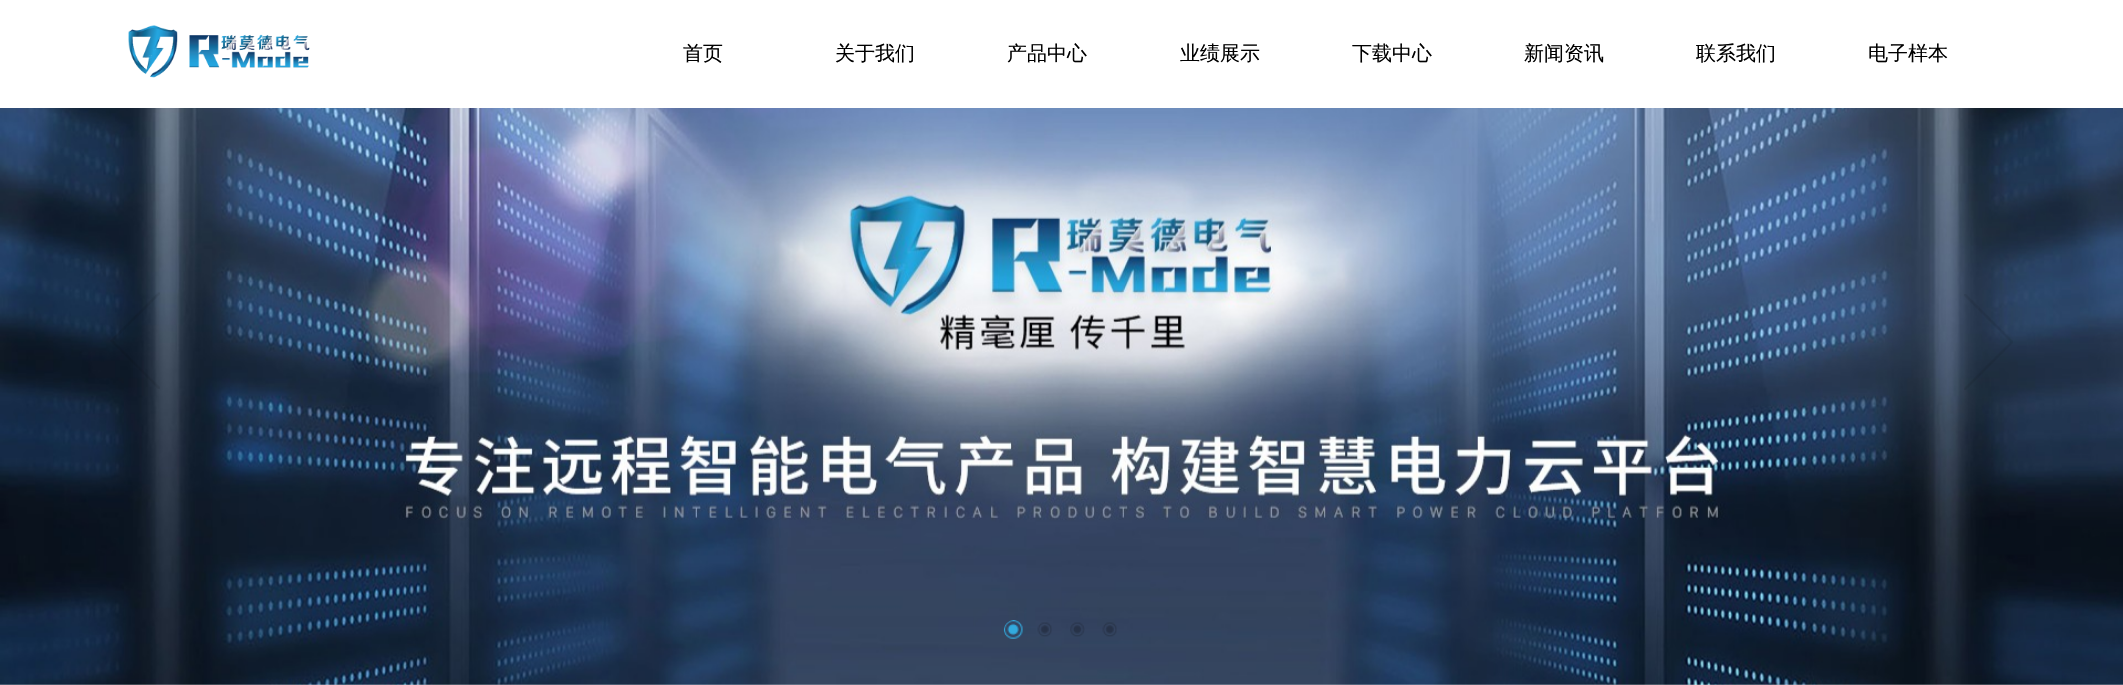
#include "include/core/SkBlurTypes.h"
#include "include/core/SkCanvas.h"
#include "include/core/SkData.h"
#include "include/core/SkFont.h"
#include "include/core/SkFontMgr.h"
#include "include/core/SkImage.h"
#include "include/core/SkMaskFilter.h"
#include "include/core/SkPaint.h"
#include "include/core/SkPathBuilder.h"
#include "include/core/SkTextBlob.h"
#include "include/effects/SkDashPathEffect.h"
#include "include/effects/SkGradientShader.h"
#include "include/utils/SkParsePath.h"

extern sk_sp<SkFontMgr> fontMgr;

void draw(SkCanvas* canvas) {
  SkPaint p;
  p.setAntiAlias(true);
  canvas->clear(SK_ColorWHITE);
  canvas->drawImageRect(SkImages::DeferredFromEncodedData(SkData::MakeFromFileName("images/1.png")), SkRect::MakeLTRB(128, 25, 310, 78), SkSamplingOptions());
  canvas->drawImageRect(SkImages::DeferredFromEncodedData(SkData::MakeFromFileName("images/2.png")), SkRect::MakeLTRB(0, 108, 2123, 685), SkSamplingOptions());
  canvas->drawImageRect(SkImages::DeferredFromEncodedData(SkData::MakeFromFileName("images/3.png")), SkRect::MakeLTRB(110, 292, 160, 389), SkSamplingOptions());
  canvas->drawImageRect(SkImages::DeferredFromEncodedData(SkData::MakeFromFileName("images/4.png")), SkRect::MakeLTRB(1964, 294, 2013, 390), SkSamplingOptions());
  canvas->drawImageRect(SkImages::DeferredFromEncodedData(SkData::MakeFromFileName("images/5.png")), SkRect::MakeLTRB(1003, 620, 1023, 639), SkSamplingOptions());
  canvas->drawImageRect(SkImages::DeferredFromEncodedData(SkData::MakeFromFileName("images/6.png")), SkRect::MakeLTRB(1037, 622, 1052, 637), SkSamplingOptions());
  canvas->drawImageRect(SkImages::DeferredFromEncodedData(SkData::MakeFromFileName("images/7.png")), SkRect::MakeLTRB(1070, 622, 1085, 637), SkSamplingOptions());
  canvas->drawImageRect(SkImages::DeferredFromEncodedData(SkData::MakeFromFileName("images/8.png")), SkRect::MakeLTRB(1102, 622, 1117, 637), SkSamplingOptions());
  SkFont font1(fontMgr->matchFamilyStyle("WenQuanYi Zen Hei", SkFontStyle(500, SkFontStyle::kNormal_Width, SkFontStyle::kUpright_Slant)), 20);
  font1.setSubpixel(true);
  p.setColor(SK_ColorBLACK);
  canvas->drawString("首页", 683, 60, font1, p);
  canvas->drawString("关于我们", 835, 60, font1, p);
  canvas->drawString("产品中心", 1007, 60, font1, p);
  canvas->drawString("业绩展示", 1180, 60, font1, p);
  canvas->drawString("下载中心", 1352, 60, font1, p);
  canvas->drawString("新闻资讯", 1524, 60, font1, p);
  canvas->drawString("联系我们", 1696, 60, font1, p);
  canvas->drawString("电子样本", 1868, 60, font1, p);
}
